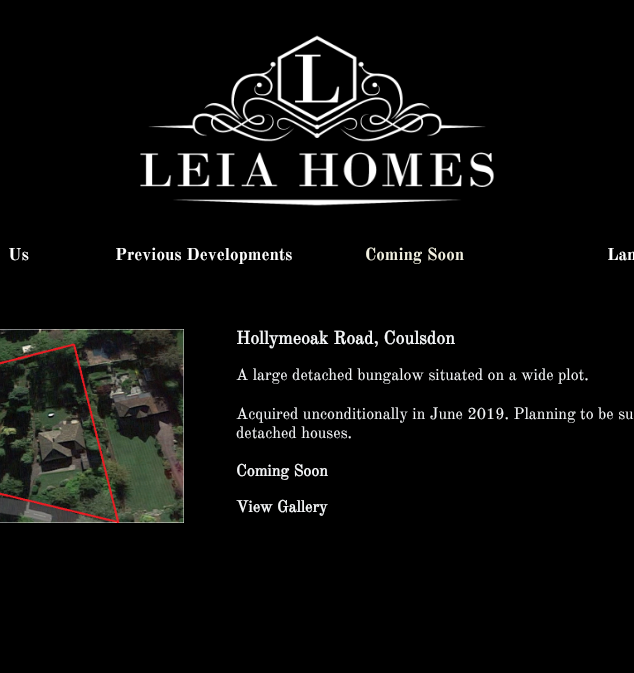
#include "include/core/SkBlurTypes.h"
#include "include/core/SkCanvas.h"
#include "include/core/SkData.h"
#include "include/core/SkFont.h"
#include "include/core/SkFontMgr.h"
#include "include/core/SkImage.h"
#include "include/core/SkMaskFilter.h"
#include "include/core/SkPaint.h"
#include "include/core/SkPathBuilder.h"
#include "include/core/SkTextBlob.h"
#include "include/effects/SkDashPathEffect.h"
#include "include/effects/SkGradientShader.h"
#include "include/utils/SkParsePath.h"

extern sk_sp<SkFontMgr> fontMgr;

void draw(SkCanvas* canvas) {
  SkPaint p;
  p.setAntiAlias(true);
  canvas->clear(SK_ColorBLACK);
  canvas->drawImageRect(SkImages::DeferredFromEncodedData(SkData::MakeFromFileName("images/1.png")), SkRect::MakeLTRB(140, 35, 495, 206), SkSamplingOptions());
  canvas->drawImageRect(SkImages::DeferredFromEncodedData(SkData::MakeFromFileName("images/2.png")), SkRect::MakeLTRB(0, 329, 184, 523), SkSamplingOptions());
  SkFont font1(fontMgr->matchFamilyStyle("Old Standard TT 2", SkFontStyle::Bold()), 17);
  font1.setSubpixel(true);
  p.setColor(SK_ColorWHITE);
  canvas->drawString("Us", 8, 260, font1, p);
  canvas->drawString("Previous Developments", 115, 260, font1, p);
  p.setColor(SkColorSetRGB(242, 241, 225));
  canvas->drawString("Coming Soon", 365, 260, font1, p);
  p.setColor(SK_ColorWHITE);
  canvas->drawString("Lan", 607, 260, font1, p);
  SkFont font2(fontMgr->matchFamilyStyle("Old Standard TT", SkFontStyle::Bold()), 18);
  font2.setSubpixel(true);
  p.setColor(SkColorSetRGB(244, 246, 248));
  canvas->drawString("Hollymeoak Road, Coulsdon", 236, 344, font2, p);
  SkFont font3(fontMgr->matchFamilyStyle("Old Standard TT", SkFontStyle::Normal()), 16);
  font3.setSubpixel(true);
  canvas->drawString("A large detached bungalow situated on a wide plot.", 236, 380, font3, p);
  canvas->drawString("Acquired unconditionally in June 2019. Planning to be su", 236, 419, font3, p);
  canvas->drawString("detached houses.", 236, 438, font3, p);
  SkFont font4(fontMgr->matchFamilyStyle("Old Standard TT", SkFontStyle::Bold()), 16);
  font4.setSubpixel(true);
  canvas->drawString("Coming Soon", 236, 476, font4, p);
  canvas->drawString("View Gallery", 236, 512, font4, p);
}
